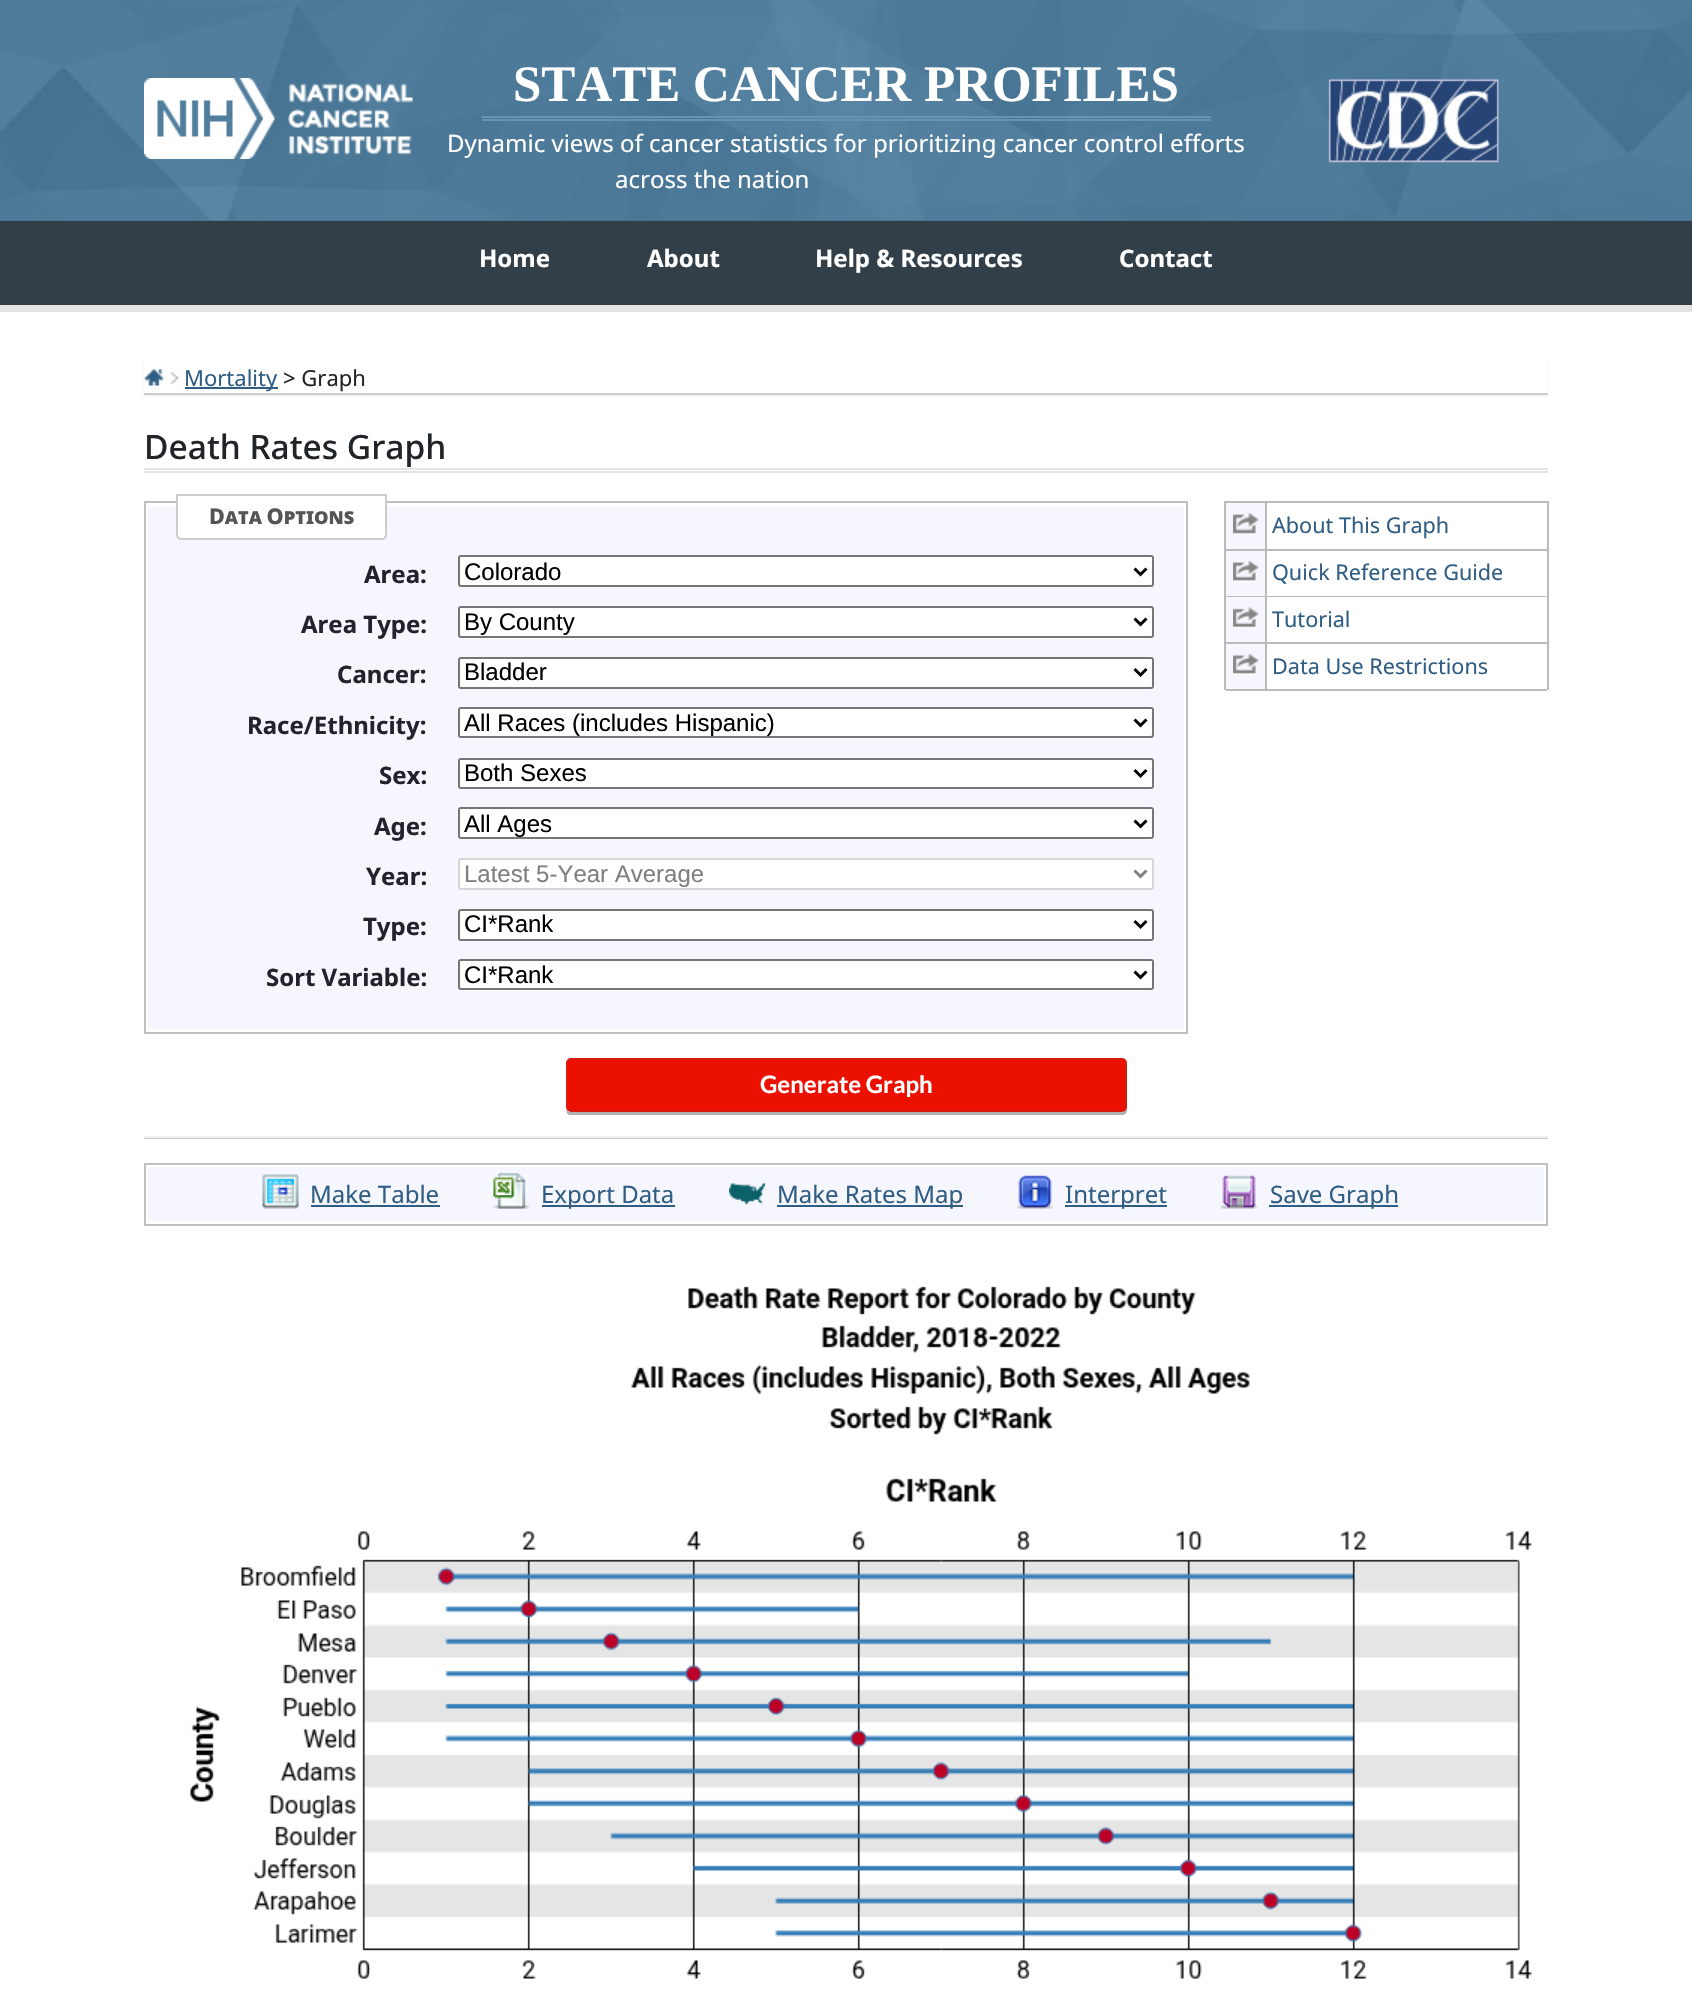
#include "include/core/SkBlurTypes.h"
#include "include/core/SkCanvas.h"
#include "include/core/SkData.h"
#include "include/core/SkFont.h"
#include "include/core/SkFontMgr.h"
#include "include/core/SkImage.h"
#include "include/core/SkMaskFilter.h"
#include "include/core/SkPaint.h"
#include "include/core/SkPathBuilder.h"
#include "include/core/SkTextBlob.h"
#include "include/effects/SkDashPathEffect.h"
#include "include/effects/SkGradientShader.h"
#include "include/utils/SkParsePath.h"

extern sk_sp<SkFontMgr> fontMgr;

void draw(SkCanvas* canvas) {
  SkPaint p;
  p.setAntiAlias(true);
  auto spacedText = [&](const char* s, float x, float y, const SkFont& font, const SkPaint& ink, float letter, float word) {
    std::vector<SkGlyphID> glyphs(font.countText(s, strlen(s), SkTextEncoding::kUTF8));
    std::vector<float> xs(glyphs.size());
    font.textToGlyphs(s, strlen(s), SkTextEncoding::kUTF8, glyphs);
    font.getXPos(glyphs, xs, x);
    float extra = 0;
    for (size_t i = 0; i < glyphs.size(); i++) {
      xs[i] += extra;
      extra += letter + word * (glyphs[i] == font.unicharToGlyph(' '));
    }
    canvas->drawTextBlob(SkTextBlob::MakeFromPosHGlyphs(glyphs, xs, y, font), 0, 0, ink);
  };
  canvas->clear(SK_ColorWHITE);
  p.setColor(SkColorSetRGB(70, 107, 134));
  canvas->drawRect(SkRect::MakeLTRB(0, 220, 1692, 221), p);
  canvas->drawImageRect(SkImages::DeferredFromEncodedData(SkData::MakeFromFileName("images/1.png")), SkRect::MakeLTRB(0, 0, 1692, 221), SkSamplingOptions());
  canvas->drawImageRect(SkImages::DeferredFromEncodedData(SkData::MakeFromFileName("images/2.png")), SkRect::MakeLTRB(144, 78, 413, 159), SkSamplingOptions());
  p.setColor(SkColorSetRGB(106, 147, 177));
  canvas->drawRect(SkRect::MakeLTRB(482, 116, 1211, 118), p);
  canvas->drawRect(SkRect::MakeLTRB(482, 119, 1211, 121), p);
  canvas->drawImageRect(SkImages::DeferredFromEncodedData(SkData::MakeFromFileName("images/3.png")), SkRect::MakeLTRB(1328, 79, 1499, 163), SkSamplingOptions());
  p.setColor(SkColorSetRGB(51, 63, 72));
  canvas->drawRect(SkRect::MakeLTRB(0, 221, 1692, 305), p);
  p.setColor(SkColorSetRGB(228, 228, 228));
  canvas->drawRect(SkRect::MakeLTRB(0, 305, 1692, 312), p);
  canvas->save();
  canvas->clipPath(SkPathBuilder(SkPathFillType::kEvenOdd).moveTo(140, 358).lineTo(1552, 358).lineTo(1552, 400).lineTo(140, 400).close().moveTo(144, 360).lineTo(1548, 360).lineTo(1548, 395).lineTo(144, 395).close().detach(), true);
  p.setColor(SkColorSetRGB(238, 238, 238));
  p.setMaskFilter(SkMaskFilter::MakeBlur(kNormal_SkBlurStyle, 1));
  canvas->drawRect(SkRect::MakeLTRB(144, 362, 1548, 396), p);
  p.setMaskFilter(nullptr);
  canvas->restore();
  p.setColor(SkColorSetRGB(204, 204, 204));
  canvas->drawRect(SkRect::MakeLTRB(144, 393, 1548, 395), p);
  canvas->drawImageRect(SkImages::DeferredFromEncodedData(SkData::MakeFromFileName("images/4.png")), SkRect::MakeLTRB(144, 369, 164, 386), SkSamplingOptions());
  canvas->drawImageRect(SkImages::DeferredFromEncodedData(SkData::MakeFromFileName("images/5.png")), SkRect::MakeLTRB(169, 371, 179, 385), SkSamplingOptions());
  p.setColor(SkColorSetRGB(48, 93, 131));
  canvas->drawRect(SkRect::MakeLTRB(185, 387, 278, 389), p);
  p.setColor(SkColorSetRGB(228, 228, 228));
  canvas->drawRect(SkRect::MakeLTRB(144, 468, 1548, 470), p);
  canvas->drawRect(SkRect::MakeLTRB(144, 471, 1548, 473), p);
  p.setColor(SkColorSetRGB(246, 246, 255));
  canvas->drawRect(SkRect::MakeLTRB(148, 506, 1184, 1029), p);
  p.setStyle(SkPaint::kStroke_Style);
  p.setStrokeWidth(2);
  p.setColor(SkColorSetRGB(192, 192, 192));
  canvas->drawRect(SkRect::MakeLTRB(145, 502, 1187, 1033), p);
  p.setStyle(SkPaint::kFill_Style);
  p.setColor(SK_ColorWHITE);
  canvas->drawPath(SkPathBuilder().moveTo(177, 495).lineTo(386, 495).lineTo(386, 535).cubicTo(386, 537, 384, 539, 382, 539).lineTo(181, 539).cubicTo(179, 539, 177, 537, 177, 535).close().detach(), p);
  p.setStyle(SkPaint::kStroke_Style);
  p.setColor(SkColorSetRGB(204, 204, 204));
  canvas->drawPath(SkPathBuilder().moveTo(177, 495).lineTo(386, 495).lineTo(386, 535).cubicTo(386, 537, 384, 539, 382, 539).lineTo(181, 539).cubicTo(179, 539, 177, 537, 177, 535).close().detach(), p);
  p.setStyle(SkPaint::kFill_Style);
  p.setColor(SK_ColorWHITE);
  canvas->drawRoundRect(SkRect::MakeLTRB(459, 556, 1153, 586), 2, 2, p);
  p.setStyle(SkPaint::kStroke_Style);
  p.setColor(SkColorSetRGB(118, 118, 118));
  canvas->drawRoundRect(SkRect::MakeLTRB(459, 556, 1153, 586), 2, 2, p);
  p.setStrokeWidth(3);
  p.setColor(SK_ColorBLACK);
  canvas->drawPath(SkPathBuilder().moveTo(1134.5f, 568.5f).lineTo(1140.5f, 574.5f).lineTo(1146.5f, 568.5f).detach(), p);
  p.setStyle(SkPaint::kFill_Style);
  p.setColor(SK_ColorWHITE);
  canvas->drawRoundRect(SkRect::MakeLTRB(459, 607, 1153, 637), 2, 2, p);
  p.setStyle(SkPaint::kStroke_Style);
  p.setStrokeWidth(2);
  p.setColor(SkColorSetRGB(118, 118, 118));
  canvas->drawRoundRect(SkRect::MakeLTRB(459, 607, 1153, 637), 2, 2, p);
  p.setStrokeWidth(3);
  p.setColor(SK_ColorBLACK);
  canvas->drawPath(SkPathBuilder().moveTo(1134.5f, 618.5f).lineTo(1140.5f, 624.5f).lineTo(1146.5f, 618.5f).detach(), p);
  p.setStyle(SkPaint::kFill_Style);
  p.setColor(SK_ColorWHITE);
  canvas->drawRoundRect(SkRect::MakeLTRB(459, 658, 1153, 688), 2, 2, p);
  p.setStyle(SkPaint::kStroke_Style);
  p.setStrokeWidth(2);
  p.setColor(SkColorSetRGB(118, 118, 118));
  canvas->drawRoundRect(SkRect::MakeLTRB(459, 658, 1153, 688), 2, 2, p);
  p.setStrokeWidth(3);
  p.setColor(SK_ColorBLACK);
  canvas->drawPath(SkPathBuilder().moveTo(1134.5f, 669).lineTo(1140.5f, 675).lineTo(1146.5f, 669).detach(), p);
  p.setStyle(SkPaint::kFill_Style);
  p.setColor(SK_ColorWHITE);
  canvas->drawRoundRect(SkRect::MakeLTRB(459, 708, 1153, 737), 2, 2, p);
  p.setStyle(SkPaint::kStroke_Style);
  p.setStrokeWidth(2);
  p.setColor(SkColorSetRGB(118, 118, 118));
  canvas->drawRoundRect(SkRect::MakeLTRB(459, 708, 1153, 737), 2, 2, p);
  p.setStrokeWidth(3);
  p.setColor(SK_ColorBLACK);
  canvas->drawPath(SkPathBuilder().moveTo(1134.5f, 719.5f).lineTo(1140.5f, 725.5f).lineTo(1146.5f, 719.5f).detach(), p);
  p.setStyle(SkPaint::kFill_Style);
  p.setColor(SK_ColorWHITE);
  canvas->drawRoundRect(SkRect::MakeLTRB(459, 759, 1153, 788), 2, 2, p);
  p.setStyle(SkPaint::kStroke_Style);
  p.setStrokeWidth(2);
  p.setColor(SkColorSetRGB(118, 118, 118));
  canvas->drawRoundRect(SkRect::MakeLTRB(459, 759, 1153, 788), 2, 2, p);
  p.setStrokeWidth(3);
  p.setColor(SK_ColorBLACK);
  canvas->drawPath(SkPathBuilder().moveTo(1134.5f, 770).lineTo(1140.5f, 776).lineTo(1146.5f, 770).detach(), p);
  p.setStyle(SkPaint::kFill_Style);
  p.setColor(SK_ColorWHITE);
  canvas->drawRoundRect(SkRect::MakeLTRB(459, 808, 1153, 838), 2, 2, p);
  p.setStyle(SkPaint::kStroke_Style);
  p.setStrokeWidth(2);
  p.setColor(SkColorSetRGB(118, 118, 118));
  canvas->drawRoundRect(SkRect::MakeLTRB(459, 808, 1153, 838), 2, 2, p);
  p.setStrokeWidth(3);
  p.setColor(SK_ColorBLACK);
  canvas->drawPath(SkPathBuilder().moveTo(1134.5f, 820.5f).lineTo(1140.5f, 826.5f).lineTo(1146.5f, 820.5f).detach(), p);
  p.setStyle(SkPaint::kFill_Style);
  p.setColor(SK_ColorWHITE);
  canvas->drawRoundRect(SkRect::MakeLTRB(458, 858, 1154, 890), 3, 3, p);
  p.setStyle(SkPaint::kStroke_Style);
  p.setStrokeWidth(2);
  p.setColor(SkColorSetARGB(77, 118, 118, 118));
  canvas->drawRoundRect(SkRect::MakeLTRB(459, 859, 1153, 889), 2, 2, p);
  p.setStrokeWidth(3);
  p.setColor(SkColorSetRGB(128, 128, 128));
  canvas->drawPath(SkPathBuilder().moveTo(1134.5f, 870.5f).lineTo(1140.5f, 876.5f).lineTo(1146.5f, 870.5f).detach(), p);
  p.setStyle(SkPaint::kFill_Style);
  p.setColor(SK_ColorWHITE);
  canvas->drawRoundRect(SkRect::MakeLTRB(459, 910, 1153, 940), 2, 2, p);
  p.setStyle(SkPaint::kStroke_Style);
  p.setStrokeWidth(2);
  p.setColor(SkColorSetRGB(118, 118, 118));
  canvas->drawRoundRect(SkRect::MakeLTRB(459, 910, 1153, 940), 2, 2, p);
  p.setStrokeWidth(3);
  p.setColor(SK_ColorBLACK);
  canvas->drawPath(SkPathBuilder().moveTo(1134.5f, 921).lineTo(1140.5f, 927).lineTo(1146.5f, 921).detach(), p);
  p.setStyle(SkPaint::kFill_Style);
  p.setColor(SK_ColorWHITE);
  canvas->drawRoundRect(SkRect::MakeLTRB(459, 960, 1153, 989), 2, 2, p);
  p.setStyle(SkPaint::kStroke_Style);
  p.setStrokeWidth(2);
  p.setColor(SkColorSetRGB(118, 118, 118));
  canvas->drawRoundRect(SkRect::MakeLTRB(459, 960, 1153, 989), 2, 2, p);
  p.setStrokeWidth(3);
  p.setColor(SK_ColorBLACK);
  canvas->drawPath(SkPathBuilder().moveTo(1134.5f, 971.5f).lineTo(1140.5f, 977.5f).lineTo(1146.5f, 971.5f).detach(), p);
  p.setStyle(SkPaint::kFill_Style);
  p.setColor(SkColorSetRGB(246, 246, 255));
  canvas->drawRect(SkRect::MakeLTRB(1226, 503, 1265, 689), p);
  p.setColor(SkColorSetRGB(187, 187, 187));
  canvas->drawRect(SkRect::MakeLTRB(1224, 501, 1548, 503), p);
  canvas->drawRect(SkRect::MakeLTRB(1547, 501, 1549, 690), p);
  canvas->drawRect(SkRect::MakeLTRB(1224, 501, 1226, 690), p);
  canvas->drawRect(SkRect::MakeLTRB(1226, 549, 1547, 551), p);
  canvas->drawImageRect(SkImages::DeferredFromEncodedData(SkData::MakeFromFileName("images/6.png")), SkRect::MakeLTRB(1233, 513, 1259, 535), SkSamplingOptions());
  canvas->drawRect(SkRect::MakeLTRB(1265, 503, 1267, 549), p);
  canvas->drawRect(SkRect::MakeLTRB(1226, 596, 1547, 597), p);
  canvas->drawImageRect(SkImages::DeferredFromEncodedData(SkData::MakeFromFileName("images/7.png")), SkRect::MakeLTRB(1233, 561, 1259, 582), SkSamplingOptions());
  canvas->drawRect(SkRect::MakeLTRB(1265, 551, 1267, 596), p);
  canvas->drawRect(SkRect::MakeLTRB(1226, 642, 1547, 644), p);
  canvas->drawImageRect(SkImages::DeferredFromEncodedData(SkData::MakeFromFileName("images/8.png")), SkRect::MakeLTRB(1233, 607, 1259, 628), SkSamplingOptions());
  canvas->drawRect(SkRect::MakeLTRB(1265, 597, 1267, 642), p);
  canvas->drawRect(SkRect::MakeLTRB(1226, 689, 1547, 691), p);
  canvas->drawImageRect(SkImages::DeferredFromEncodedData(SkData::MakeFromFileName("images/7.png")), SkRect::MakeLTRB(1233, 654, 1259, 675), SkSamplingOptions());
  canvas->drawRect(SkRect::MakeLTRB(1265, 644, 1267, 689), p);
  p.setColor(SkColorSetRGB(179, 179, 179));
  canvas->drawPath(SkPathBuilder().moveTo(566, 1109).lineTo(566, 1110).cubicTo(566, 1113, 568, 1115, 571, 1115).lineTo(1122, 1115).cubicTo(1125, 1115, 1127, 1113, 1127, 1110).lineTo(1127, 1066).lineTo(1126, 1064).lineTo(1126, 1107).cubicTo(1126, 1109, 1124, 1112, 1122, 1112).lineTo(570, 1112).cubicTo(568, 1112, 567, 1111, 566, 1109).close().detach(), p);
  p.setColor(SkColorSetRGB(236, 16, 0));
  canvas->drawRoundRect(SkRect::MakeLTRB(567, 1059, 1126, 1111), 4, 4, p);
  p.setStyle(SkPaint::kStroke_Style);
  p.setStrokeWidth(2);
  p.setColor(SkColorSetRGB(217, 27, 14));
  canvas->drawRoundRect(SkRect::MakeLTRB(567, 1059, 1126, 1111), 4, 4, p);
  p.setStyle(SkPaint::kFill_Style);
  p.setColor(SkColorSetRGB(200, 201, 202));
  canvas->drawRect(SkRect::MakeLTRB(144, 1138, 1548, 1139), p);
  p.setColor(SkColorSetRGB(239, 239, 239));
  canvas->drawRect(SkRect::MakeLTRB(144, 1136, 1548, 1138), p);
  p.setColor(SkColorSetRGB(246, 246, 255));
  canvas->drawRect(SkRect::MakeLTRB(148, 1167, 1544, 1221), p);
  p.setStyle(SkPaint::kStroke_Style);
  p.setColor(SkColorSetRGB(192, 192, 192));
  canvas->drawRect(SkRect::MakeLTRB(145, 1164, 1547, 1225), p);
  canvas->drawImageRect(SkImages::DeferredFromEncodedData(SkData::MakeFromFileName("images/9.png")), SkRect::MakeLTRB(262, 1174, 299, 1209), SkSamplingOptions());
  p.setStyle(SkPaint::kFill_Style);
  p.setColor(SkColorSetRGB(48, 93, 131));
  canvas->drawRect(SkRect::MakeLTRB(311, 1205, 440, 1207), p);
  canvas->drawImageRect(SkImages::DeferredFromEncodedData(SkData::MakeFromFileName("images/10.png")), SkRect::MakeLTRB(493, 1173, 530, 1209), SkSamplingOptions());
  canvas->drawRect(SkRect::MakeLTRB(542, 1205, 675, 1207), p);
  canvas->drawImageRect(SkImages::DeferredFromEncodedData(SkData::MakeFromFileName("images/11.png")), SkRect::MakeLTRB(729, 1183, 765, 1205), SkSamplingOptions());
  canvas->drawRect(SkRect::MakeLTRB(777, 1205, 963, 1207), p);
  canvas->drawImageRect(SkImages::DeferredFromEncodedData(SkData::MakeFromFileName("images/12.png")), SkRect::MakeLTRB(1017, 1175, 1053, 1209), SkSamplingOptions());
  canvas->drawRect(SkRect::MakeLTRB(1065, 1205, 1167, 1207), p);
  canvas->drawImageRect(SkImages::DeferredFromEncodedData(SkData::MakeFromFileName("images/13.png")), SkRect::MakeLTRB(1221, 1175, 1257, 1209), SkSamplingOptions());
  canvas->drawRect(SkRect::MakeLTRB(1269, 1205, 1398, 1207), p);
  canvas->drawImageRect(SkImages::DeferredFromEncodedData(SkData::MakeFromFileName("images/14.png")), SkRect::MakeLTRB(190, 1286, 1532, 1979), SkSamplingOptions());
  SkFont font1(fontMgr->matchFamilyStyle("Liberation Serif", SkFontStyle::Bold()), 51);
  font1.setSubpixel(true);
  p.setColor(SK_ColorWHITE);
  canvas->drawString("STATE CANCER PROFILES", 513, 101, font1, p);
  SkFont font2(fontMgr->matchFamilyStyle("Noto Sans", SkFontStyle::Normal()), 24);
  font2.setSubpixel(true);
  canvas->drawString("Dynamic views of cancer statistics for prioritizing cancer control efforts", 447, 152, font2, p);
  canvas->drawString("across the nation", 615, 188, font2, p);
  SkFont font3(fontMgr->matchFamilyStyle("Noto Sans", SkFontStyle::Bold()), 24);
  font3.setSubpixel(true);
  canvas->drawString("Home", 479, 267, font3, p);
  canvas->drawString("About", 647, 267, font3, p);
  canvas->drawString("Help & Resources", 815, 267, font3, p);
  canvas->drawString("Contact", 1119, 267, font3, p);
  SkFont font4(fontMgr->matchFamilyStyle("Noto Sans", SkFontStyle::Normal()), 22);
  font4.setSubpixel(true);
  p.setColor(SkColorSetRGB(48, 93, 131));
  canvas->drawString("Mortality", 184, 386, font4, p);
  p.setColor(SkColorSetRGB(33, 37, 41));
  canvas->drawString("> Graph", 283, 386, font4, p);
  SkFont font5(fontMgr->matchFamilyStyle("Noto Sans", SkFontStyle(500, SkFontStyle::kNormal_Width, SkFontStyle::kUpright_Slant)), 33.5f);
  font5.setSubpixel(true);
  canvas->drawString("Death Rates Graph", 144, 459, font5, p);
  SkFont font6(fontMgr->matchFamilyStyle("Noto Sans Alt", SkFontStyle(800, SkFontStyle::kNormal_Width, SkFontStyle::kUpright_Slant)), 21.6f);
  font6.setSubpixel(true);
  p.setColor(SkColorSetRGB(85, 85, 85));
  spacedText("Data Options", 209, 524, font6, p, 0, -1);
  p.setColor(SkColorSetRGB(33, 37, 41));
  canvas->drawString("Area:", 364, 583, font3, p);
  SkFont font7(fontMgr->matchFamilyStyle("Liberation Sans", SkFontStyle::Normal()), 24);
  font7.setSubpixel(true);
  p.setColor(SK_ColorBLACK);
  canvas->drawString("Colorado", 464, 580, font7, p);
  p.setColor(SkColorSetRGB(33, 37, 41));
  canvas->drawString("Area Type:", 301, 633, font3, p);
  p.setColor(SK_ColorBLACK);
  canvas->drawString("By County", 464, 630, font7, p);
  p.setColor(SkColorSetRGB(33, 37, 41));
  canvas->drawString("Cancer:", 337, 683, font3, p);
  p.setColor(SK_ColorBLACK);
  canvas->drawString("Bladder", 464, 680, font7, p);
  p.setColor(SkColorSetRGB(33, 37, 41));
  canvas->drawString("Race/Ethnicity:", 247, 734, font3, p);
  p.setColor(SK_ColorBLACK);
  canvas->drawString("All Races (includes Hispanic)", 464, 731, font7, p);
  p.setColor(SkColorSetRGB(33, 37, 41));
  canvas->drawString("Sex:", 379, 784, font3, p);
  p.setColor(SK_ColorBLACK);
  canvas->drawString("Both Sexes", 464, 781, font7, p);
  p.setColor(SkColorSetRGB(33, 37, 41));
  canvas->drawString("Age:", 374, 835, font3, p);
  p.setColor(SK_ColorBLACK);
  canvas->drawString("All Ages", 464, 832, font7, p);
  p.setColor(SkColorSetRGB(33, 37, 41));
  canvas->drawString("Year:", 366, 885, font3, p);
  p.setColor(SkColorSetRGB(128, 128, 128));
  canvas->drawString("Latest 5-Year Average", 464, 882, font7, p);
  p.setColor(SkColorSetRGB(33, 37, 41));
  canvas->drawString("Type:", 363, 935, font3, p);
  p.setColor(SK_ColorBLACK);
  canvas->drawString("CI*Rank", 464, 932, font7, p);
  p.setColor(SkColorSetRGB(33, 37, 41));
  canvas->drawString("Sort Variable:", 266, 986, font3, p);
  p.setColor(SK_ColorBLACK);
  canvas->drawString("CI*Rank", 464, 983, font7, p);
  SkFont font8(fontMgr->matchFamilyStyle("Noto Sans", SkFontStyle::Normal()), 21.6f);
  font8.setSubpixel(true);
  p.setColor(SkColorSetRGB(48, 93, 131));
  canvas->drawString("About This Graph", 1272, 533, font8, p);
  canvas->drawString("Quick Reference Guide", 1272, 580, font8, p);
  canvas->drawString("Tutorial", 1272, 627, font8, p);
  canvas->drawString("Data Use Restrictions", 1272, 674, font8, p);
  SkFont font9(fontMgr->matchFamilyStyle("Lato", SkFontStyle::Bold()), 24);
  font9.setSubpixel(true);
  p.setColor(SK_ColorWHITE);
  canvas->drawString("Generate Graph", 760, 1093, font9, p);
  p.setColor(SkColorSetRGB(48, 93, 131));
  canvas->drawString("Make Table", 310, 1203, font2, p);
  canvas->drawString("Export Data", 541, 1203, font2, p);
  canvas->drawString("Make Rates Map", 777, 1203, font2, p);
  canvas->drawString("Interpret", 1065, 1203, font2, p);
  canvas->drawString("Save Graph", 1270, 1203, font2, p);
}
